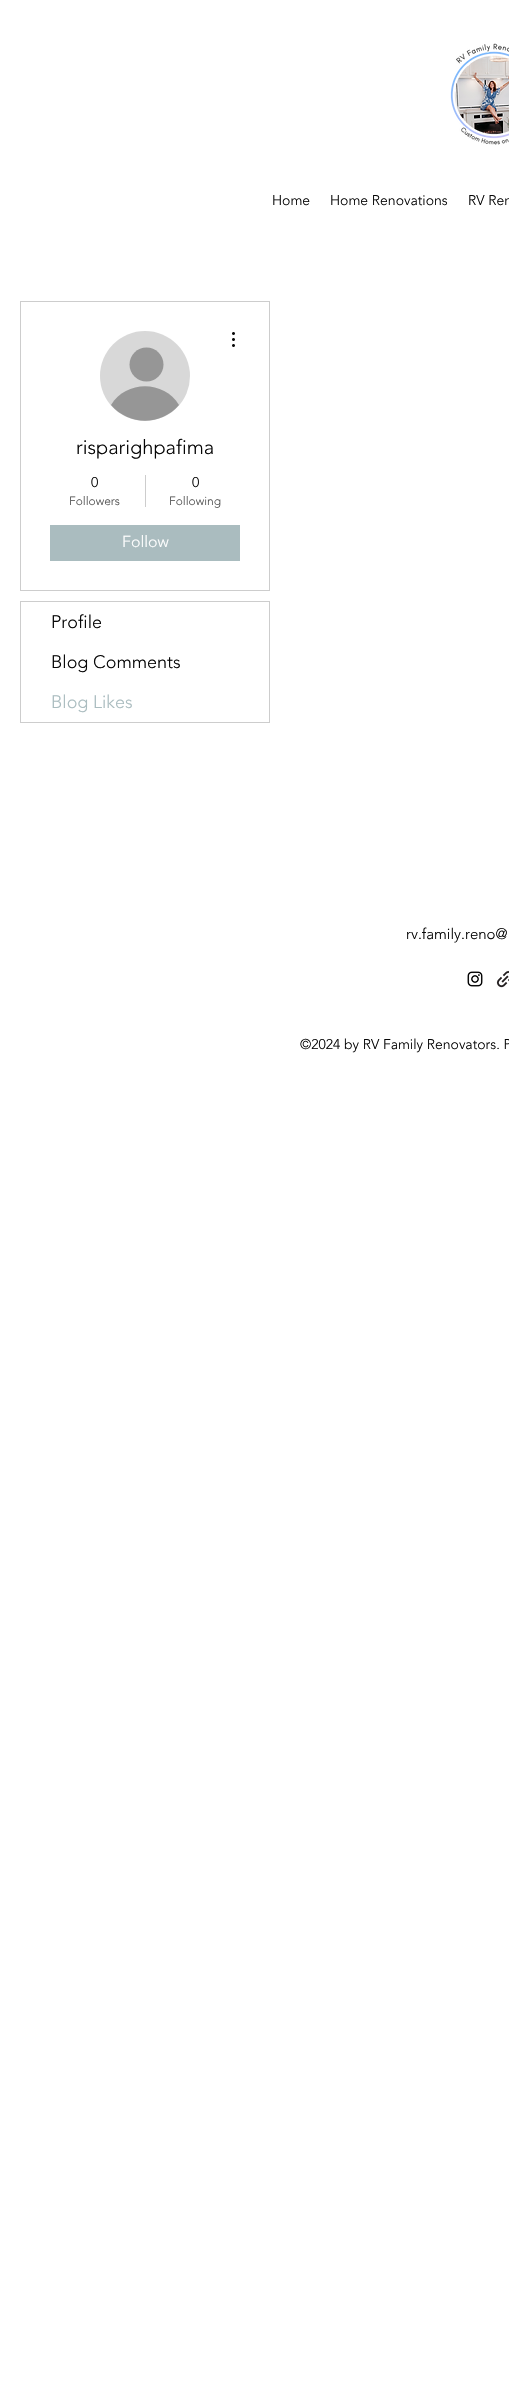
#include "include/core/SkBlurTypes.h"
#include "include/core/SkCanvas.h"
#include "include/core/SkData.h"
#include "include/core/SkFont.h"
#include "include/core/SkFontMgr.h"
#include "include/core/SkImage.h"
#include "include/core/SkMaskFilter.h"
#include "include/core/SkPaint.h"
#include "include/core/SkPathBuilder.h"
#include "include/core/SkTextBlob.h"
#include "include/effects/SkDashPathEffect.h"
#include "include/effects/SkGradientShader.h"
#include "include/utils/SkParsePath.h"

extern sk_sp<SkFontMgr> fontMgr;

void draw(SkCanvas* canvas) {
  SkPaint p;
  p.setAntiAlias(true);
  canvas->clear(SK_ColorWHITE);
  canvas->drawImageRect(SkImages::DeferredFromEncodedData(SkData::MakeFromFileName("images/1.png")), SkRect::MakeLTRB(450, 43, 509, 145), SkSamplingOptions());
  p.setStyle(SkPaint::kStroke_Style);
  p.setStrokeWidth(1);
  p.setColor(SkColorSetRGB(205, 205, 205));
  canvas->drawRect(SkRect::MakeLTRB(20.5f, 301.5f, 269.5f, 590.5f), p);
  p.setStyle(SkPaint::kFill_Style);
  p.setColor(SkColorSetRGB(216, 216, 216));
  canvas->drawCircle(145, 376, 45, p);
  p.setColor(SkColorSetRGB(150, 150, 150));
  canvas->drawCircle(146.5f, 364.5f, 17, p);
  canvas->drawPath(SkPathBuilder().moveTo(179, 405).cubicTo(161, 426, 129, 426, 111, 405).cubicTo(126, 380, 164, 380, 179, 405).close().detach(), p);
  canvas->drawImageRect(SkImages::DeferredFromEncodedData(SkData::MakeFromFileName("images/2.png")), SkRect::MakeLTRB(232, 332, 235, 347), SkSamplingOptions());
  p.setColor(SkColorSetRGB(205, 205, 205));
  canvas->drawRect(SkRect::MakeLTRB(145, 475, 146, 507), p);
  p.setColor(SkColorSetRGB(170, 188, 191));
  canvas->drawRect(SkRect::MakeLTRB(50, 525, 240, 561), p);
  p.setStyle(SkPaint::kStroke_Style);
  p.setColor(SkColorSetRGB(205, 205, 205));
  canvas->drawRect(SkRect::MakeLTRB(20.5f, 601.5f, 269.5f, 722.5f), p);
  canvas->drawImageRect(SkImages::DeferredFromEncodedData(SkData::MakeFromFileName("images/3.png")), SkRect::MakeLTRB(467, 971, 483, 987), SkSamplingOptions());
  canvas->drawImageRect(SkImages::DeferredFromEncodedData(SkData::MakeFromFileName("images/4.png")), SkRect::MakeLTRB(496, 970, 509, 988), SkSamplingOptions());
  SkFont font1(fontMgr->matchFamilyStyle("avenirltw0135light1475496", SkFontStyle(300, SkFontStyle::kNormal_Width, SkFontStyle::kUpright_Slant)), 14);
  font1.setSubpixel(true);
  p.setStyle(SkPaint::kFill_Style);
  p.setColor(SkColorSetRGB(6, 6, 6));
  canvas->drawString("Home", 272, 205, font1, p);
  canvas->drawString("Home Renovations", 330, 205, font1, p);
  canvas->drawString("RV Ren", 468, 205, font1, p);
  SkFont font2(fontMgr->matchFamilyStyle("avenirltw0135light1475496", SkFontStyle(300, SkFontStyle::kNormal_Width, SkFontStyle::kUpright_Slant)), 20);
  font2.setSubpixel(true);
  canvas->drawString("risparighpafima", 76, 454, font2, p);
  canvas->drawString("0", 91, 487, font1, p);
  SkFont font3(fontMgr->matchFamilyStyle("avenirltw0135light1475496", SkFontStyle(300, SkFontStyle::kNormal_Width, SkFontStyle::kUpright_Slant)), 12);
  font3.setSubpixel(true);
  p.setColor(SkColorSetRGB(81, 81, 81));
  canvas->drawString("Followers", 69, 505, font3, p);
  p.setColor(SkColorSetRGB(6, 6, 6));
  canvas->drawString("0", 192, 487, font1, p);
  p.setColor(SkColorSetRGB(81, 81, 81));
  canvas->drawString("Following", 169, 505, font3, p);
  SkFont font4(fontMgr->matchFamilyStyle("avenirltw0135light1475496", SkFontStyle(300, SkFontStyle::kNormal_Width, SkFontStyle::kUpright_Slant)), 16);
  font4.setSubpixel(true);
  p.setColor(SK_ColorWHITE);
  canvas->drawString("Follow", 122, 547, font4, p);
  SkFont font5(fontMgr->matchFamilyStyle("avenirltw0135light1475496", SkFontStyle(300, SkFontStyle::kNormal_Width, SkFontStyle::kUpright_Slant)), 18);
  font5.setSubpixel(true);
  p.setColor(SkColorSetRGB(6, 6, 6));
  canvas->drawString("Profile", 51, 628, font5, p);
  canvas->drawString("Blog Comments", 51, 668, font5, p);
  p.setColor(SkColorSetRGB(170, 188, 191));
  canvas->drawString("Blog Likes", 51, 708, font5, p);
  SkFont font6(fontMgr->matchFamilyStyle("avenirltw0135light1475496", SkFontStyle(300, SkFontStyle::kNormal_Width, SkFontStyle::kUpright_Slant)), 15);
  font6.setSubpixel(true);
  p.setColor(SkColorSetRGB(6, 6, 6));
  canvas->drawString("rv.family.reno@", 406, 939, font6, p);
  canvas->drawString("©2024 by RV Family Renovators. P", 300, 1049, font1, p);
}
